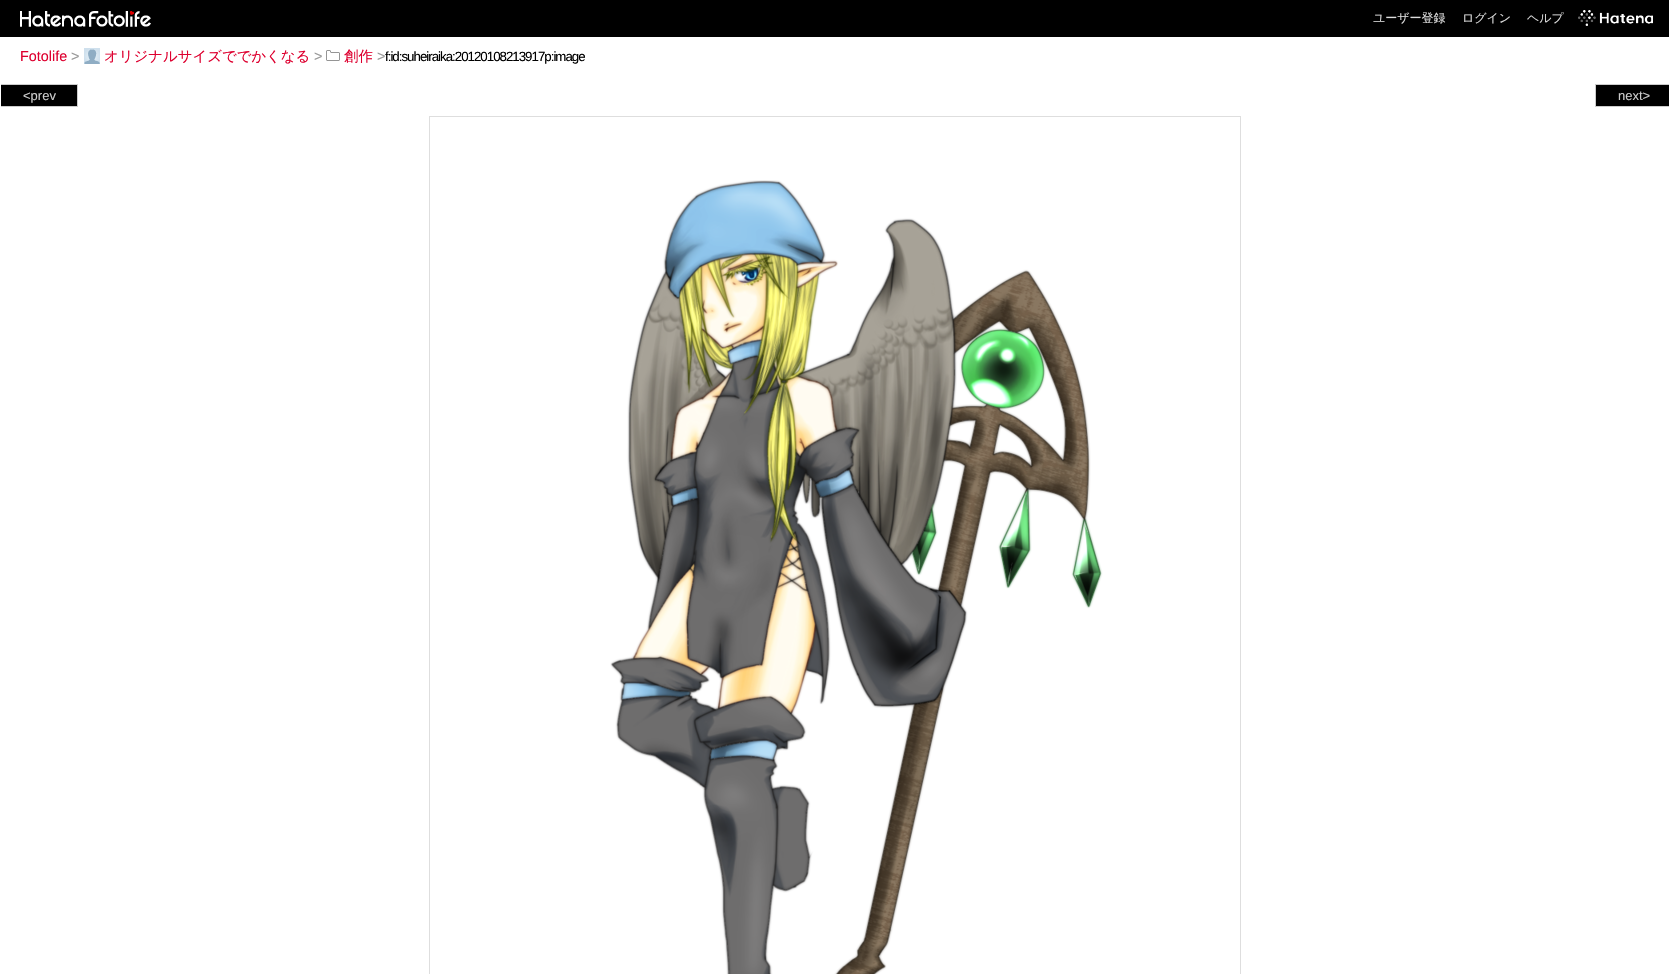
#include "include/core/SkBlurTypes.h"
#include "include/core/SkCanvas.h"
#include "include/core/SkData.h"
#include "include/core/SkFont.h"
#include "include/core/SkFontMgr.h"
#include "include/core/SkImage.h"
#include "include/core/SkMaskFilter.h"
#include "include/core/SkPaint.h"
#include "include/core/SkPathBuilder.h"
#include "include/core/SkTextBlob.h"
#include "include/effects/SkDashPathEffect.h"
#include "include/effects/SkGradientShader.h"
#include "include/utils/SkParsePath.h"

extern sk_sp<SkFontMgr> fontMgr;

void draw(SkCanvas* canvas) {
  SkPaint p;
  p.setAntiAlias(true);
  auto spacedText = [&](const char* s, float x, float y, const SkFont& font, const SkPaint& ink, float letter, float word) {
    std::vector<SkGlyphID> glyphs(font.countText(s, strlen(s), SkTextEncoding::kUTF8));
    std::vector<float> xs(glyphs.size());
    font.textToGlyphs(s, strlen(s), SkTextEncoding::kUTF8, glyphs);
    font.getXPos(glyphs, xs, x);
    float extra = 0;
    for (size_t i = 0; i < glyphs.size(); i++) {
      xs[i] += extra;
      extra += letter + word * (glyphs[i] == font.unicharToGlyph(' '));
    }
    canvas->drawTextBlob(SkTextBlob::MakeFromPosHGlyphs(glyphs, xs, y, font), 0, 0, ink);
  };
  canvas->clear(SK_ColorWHITE);
  p.setColor(SK_ColorBLACK);
  canvas->drawRect(SkRect::MakeLTRB(0, 0, 1669, 37), p);
  canvas->drawImageRect(SkImages::DeferredFromEncodedData(SkData::MakeFromFileName("images/1.png")), SkRect::MakeLTRB(20, 11, 86, 27), SkSamplingOptions());
  canvas->drawImageRect(SkImages::DeferredFromEncodedData(SkData::MakeFromFileName("images/2.png")), SkRect::MakeLTRB(89, 11, 151, 27), SkSamplingOptions());
  canvas->drawImageRect(SkImages::DeferredFromEncodedData(SkData::MakeFromFileName("images/3.png")), SkRect::MakeLTRB(1578, 10, 1653, 26), SkSamplingOptions());
  canvas->drawImageRect(SkImages::DeferredFromEncodedData(SkData::MakeFromFileName("images/4.png")), SkRect::MakeLTRB(84, 48, 100, 64), SkSamplingOptions());
  canvas->drawImageRect(SkImages::DeferredFromEncodedData(SkData::MakeFromFileName("images/5.png")), SkRect::MakeLTRB(326, 50, 340, 61), SkSamplingOptions());
  canvas->drawRect(SkRect::MakeLTRB(1, 85, 77, 106), p);
  p.setColor(SkColorSetRGB(204, 204, 204));
  canvas->drawRect(SkRect::MakeLTRB(1, 84, 78, 85), p);
  canvas->drawRect(SkRect::MakeLTRB(77, 84, 78, 107), p);
  canvas->drawRect(SkRect::MakeLTRB(1, 106, 78, 107), p);
  p.setColor(SK_ColorBLACK);
  canvas->drawRect(SkRect::MakeLTRB(1596, 85, 1669, 106), p);
  p.setColor(SkColorSetRGB(204, 204, 204));
  canvas->drawRect(SkRect::MakeLTRB(1595, 84, 1669, 85), p);
  canvas->drawRect(SkRect::MakeLTRB(1595, 106, 1669, 107), p);
  canvas->drawRect(SkRect::MakeLTRB(1595, 84, 1596, 107), p);
  p.setStyle(SkPaint::kStroke_Style);
  p.setStrokeWidth(1);
  p.setColor(SkColorSetRGB(222, 222, 222));
  canvas->drawRect(SkRect::MakeLTRB(429.5f, 116.5f, 1240.5f, 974.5f), p);
  canvas->drawImageRect(SkImages::DeferredFromEncodedData(SkData::MakeFromFileName("images/6.png")), SkRect::MakeLTRB(610, 180, 1103, 974), SkSamplingOptions());
  SkFont font1(fontMgr->matchFamilyStyle("WenQuanYi Zen Hei", SkFontStyle(500, SkFontStyle::kNormal_Width, SkFontStyle::kUpright_Slant)), 12);
  font1.setSubpixel(true);
  p.setStyle(SkPaint::kFill_Style);
  p.setColor(SkColorSetRGB(221, 221, 221));
  canvas->drawString("ユーザー登録", 1373, 22, font1, p);
  canvas->drawString("ログイン", 1462, 22, font1, p);
  canvas->drawString("ヘルプ", 1527, 22, font1, p);
  SkFont font2(fontMgr->matchFamilyStyle("Liberation Sans", SkFontStyle::Normal()), 14.4f);
  font2.setSubpixel(true);
  p.setColor(SkColorSetRGB(222, 0, 47));
  canvas->drawString("Fotolife", 20, 61, font2, p);
  p.setColor(SkColorSetRGB(153, 153, 153));
  canvas->drawString(">", 71, 61, font2, p);
  SkFont font3(fontMgr->matchFamilyStyle("WenQuanYi Zen Hei", SkFontStyle(500, SkFontStyle::kNormal_Width, SkFontStyle::kUpright_Slant)), 14.4f);
  font3.setSubpixel(true);
  p.setColor(SkColorSetRGB(222, 0, 47));
  canvas->drawString("オリジナルサイズででかくなる", 104, 61, font3, p);
  p.setColor(SkColorSetRGB(153, 153, 153));
  canvas->drawString(">", 314, 61, font2, p);
  p.setColor(SkColorSetRGB(222, 0, 47));
  canvas->drawString("創作", 344, 61, font3, p);
  p.setColor(SkColorSetRGB(153, 153, 153));
  canvas->drawString(">", 377, 61, font2, p);
  SkFont font4(fontMgr->matchFamilyStyle("Liberation Sans", SkFontStyle::Normal()), 13.3f);
  font4.setSubpixel(true);
  p.setColor(SK_ColorBLACK);
  spacedText("f:id:suheiraika:20120108213917p:image", 385, 61, font4, p, -1, 0);
  SkFont font5(fontMgr->matchFamilyStyle("Liberation Sans", SkFontStyle::Normal()), 13);
  font5.setSubpixel(true);
  p.setColor(SkColorSetRGB(204, 204, 204));
  canvas->drawString("<prev", 23, 100, font5, p);
  canvas->drawString("next>", 1618, 100, font5, p);
}
